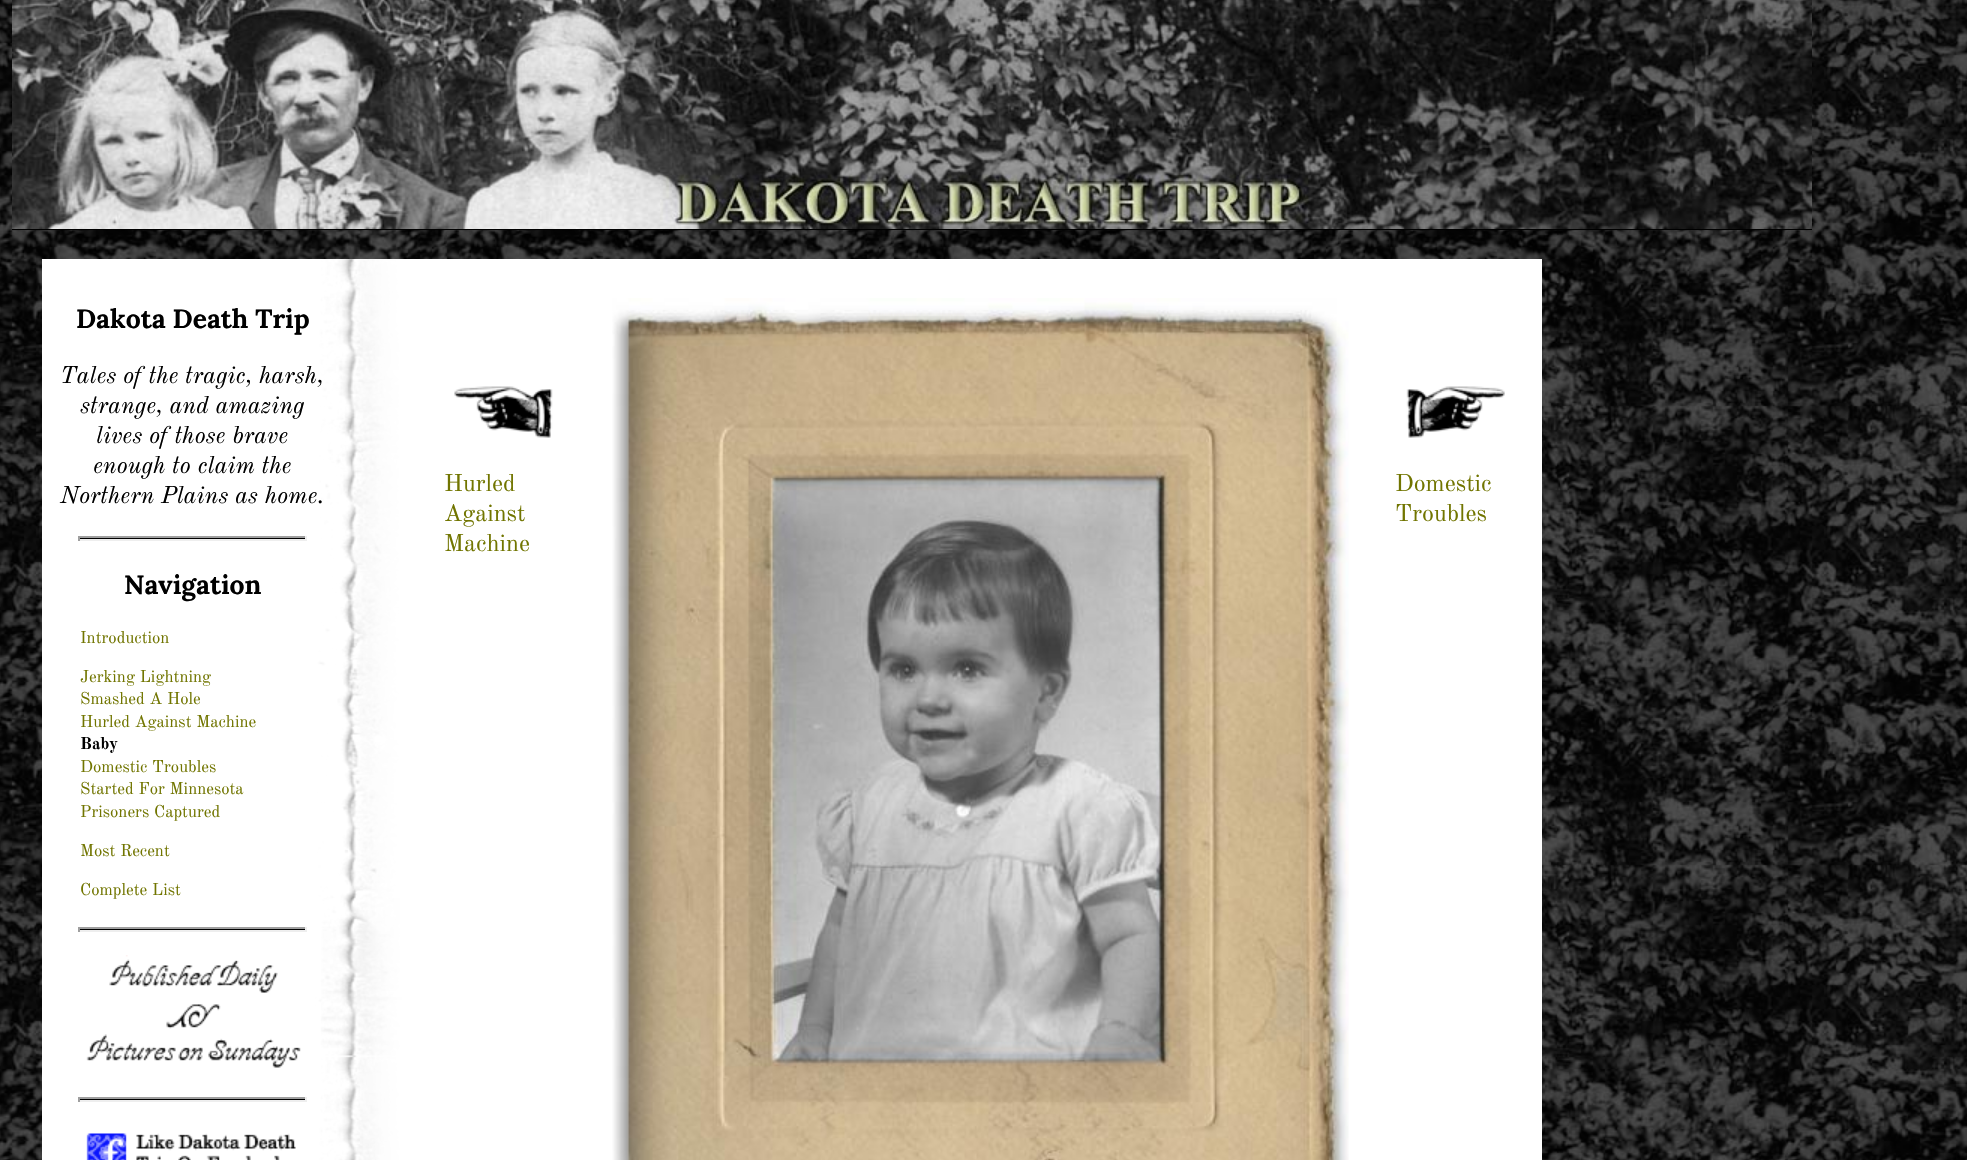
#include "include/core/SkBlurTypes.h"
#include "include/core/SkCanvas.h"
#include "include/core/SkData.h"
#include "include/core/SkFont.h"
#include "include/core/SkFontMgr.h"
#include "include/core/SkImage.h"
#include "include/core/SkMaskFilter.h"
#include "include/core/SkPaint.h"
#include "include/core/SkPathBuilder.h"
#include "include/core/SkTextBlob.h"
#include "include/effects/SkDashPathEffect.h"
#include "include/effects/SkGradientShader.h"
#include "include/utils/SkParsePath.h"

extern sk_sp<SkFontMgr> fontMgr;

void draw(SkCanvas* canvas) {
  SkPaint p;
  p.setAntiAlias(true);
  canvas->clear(SK_ColorWHITE);
  canvas->drawImageRect(SkImages::DeferredFromEncodedData(SkData::MakeFromFileName("images/1.png")), SkRect::MakeLTRB(0, 0, 1967, 1160), SkSamplingOptions());
  p.setColor(SK_ColorBLACK);
  canvas->drawRect(SkRect::MakeLTRB(12, 229, 1812, 230), p);
  canvas->drawImageRect(SkImages::DeferredFromEncodedData(SkData::MakeFromFileName("images/2.png")), SkRect::MakeLTRB(12, 0, 1812, 229), SkSamplingOptions());
  canvas->drawImageRect(SkImages::DeferredFromEncodedData(SkData::MakeFromFileName("images/3.png")), SkRect::MakeLTRB(42, 259, 1542, 1160), SkSamplingOptions());
  canvas->drawRect(SkRect::MakeLTRB(78, 538, 306, 539), p);
  p.setColor(SkColorSetRGB(159, 159, 159));
  canvas->drawRect(SkRect::MakeLTRB(78, 536, 306, 538), p);
  p.setColor(SkColorSetRGB(238, 238, 238));
  canvas->drawRect(SkRect::MakeLTRB(305, 536, 307, 541), p);
  canvas->drawRect(SkRect::MakeLTRB(78, 539, 306, 541), p);
  p.setColor(SkColorSetRGB(159, 159, 159));
  canvas->drawRect(SkRect::MakeLTRB(78, 536, 80, 541), p);
  p.setColor(SK_ColorBLACK);
  canvas->drawRect(SkRect::MakeLTRB(78, 929, 306, 930), p);
  p.setColor(SkColorSetRGB(159, 159, 159));
  canvas->drawRect(SkRect::MakeLTRB(78, 927, 306, 929), p);
  p.setColor(SkColorSetRGB(238, 238, 238));
  canvas->drawRect(SkRect::MakeLTRB(305, 927, 307, 932), p);
  canvas->drawRect(SkRect::MakeLTRB(78, 930, 306, 932), p);
  p.setColor(SkColorSetRGB(159, 159, 159));
  canvas->drawRect(SkRect::MakeLTRB(78, 927, 80, 932), p);
  canvas->drawImageRect(SkImages::DeferredFromEncodedData(SkData::MakeFromFileName("images/4.png")), SkRect::MakeLTRB(86, 955, 301, 1068), SkSamplingOptions());
  p.setColor(SK_ColorBLACK);
  canvas->drawRect(SkRect::MakeLTRB(78, 1099, 306, 1100), p);
  p.setColor(SkColorSetRGB(159, 159, 159));
  canvas->drawRect(SkRect::MakeLTRB(78, 1097, 306, 1099), p);
  p.setColor(SkColorSetRGB(238, 238, 238));
  canvas->drawRect(SkRect::MakeLTRB(305, 1097, 307, 1102), p);
  canvas->drawRect(SkRect::MakeLTRB(78, 1100, 306, 1102), p);
  p.setColor(SkColorSetRGB(159, 159, 159));
  canvas->drawRect(SkRect::MakeLTRB(78, 1097, 80, 1102), p);
  canvas->drawImageRect(SkImages::DeferredFromEncodedData(SkData::MakeFromFileName("images/5.png")), SkRect::MakeLTRB(86, 1133, 296, 1160), SkSamplingOptions());
  canvas->drawImageRect(SkImages::DeferredFromEncodedData(SkData::MakeFromFileName("images/6.png")), SkRect::MakeLTRB(454, 386, 553, 438), SkSamplingOptions());
  canvas->drawImageRect(SkImages::DeferredFromEncodedData(SkData::MakeFromFileName("images/7.png")), SkRect::MakeLTRB(612, 298, 1349, 1160), SkSamplingOptions());
  canvas->drawImageRect(SkImages::DeferredFromEncodedData(SkData::MakeFromFileName("images/8.png")), SkRect::MakeLTRB(1406, 386, 1505, 438), SkSamplingOptions());
  SkFont font1(fontMgr->matchFamilyStyle("Lora", SkFontStyle::Bold()), 26.5f);
  font1.setSubpixel(true);
  p.setColor(SK_ColorBLACK);
  canvas->drawString("Dakota Death Trip", 76, 328, font1, p);
  SkFont font2(fontMgr->matchFamilyStyle("Old Standard TT", SkFontStyle::Italic()), 24);
  font2.setSubpixel(true);
  canvas->drawString("Tales of the tragic, harsh,", 60, 383, font2, p);
  canvas->drawString("strange, and amazing", 80, 413, font2, p);
  canvas->drawString("lives of those brave", 96, 443, font2, p);
  canvas->drawString("enough to claim the", 93, 473, font2, p);
  canvas->drawString("Northern Plains as home.", 60, 503, font2, p);
  canvas->drawString("Navigation", 124, 594, font1, p);
  SkFont font3(fontMgr->matchFamilyStyle("Old Standard TT", SkFontStyle::Normal()), 16.75f);
  font3.setSubpixel(true);
  p.setColor(SkColorSetRGB(113, 117, 0));
  canvas->drawString("Introduction", 80, 643, font3, p);
  canvas->drawString("Jerking Lightning", 80, 682, font3, p);
  canvas->drawString("Smashed A Hole", 80, 704, font3, p);
  canvas->drawString("Hurled Against Machine", 80, 727, font3, p);
  SkFont font4(fontMgr->matchFamilyStyle("Old Standard TT", SkFontStyle::Bold()), 16.75f);
  font4.setSubpixel(true);
  p.setColor(SK_ColorBLACK);
  canvas->drawString("Baby", 80, 749, font4, p);
  p.setColor(SkColorSetRGB(113, 117, 0));
  canvas->drawString("Domestic Troubles", 80, 772, font3, p);
  canvas->drawString("Started For Minnesota", 80, 794, font3, p);
  canvas->drawString("Prisoners Captured", 80, 817, font3, p);
  canvas->drawString("Most Recent", 80, 856, font3, p);
  canvas->drawString("Complete List", 80, 895, font3, p);
  SkFont font5(fontMgr->matchFamilyStyle("Old Standard TT", SkFontStyle::Normal()), 24);
  font5.setSubpixel(true);
  canvas->drawString("Hurled", 444, 491, font5, p);
  canvas->drawString("Against", 444, 521, font5, p);
  canvas->drawString("Machine", 444, 551, font5, p);
  canvas->drawString("Domestic", 1395, 491, font5, p);
  canvas->drawString("Troubles", 1395, 521, font5, p);
}
